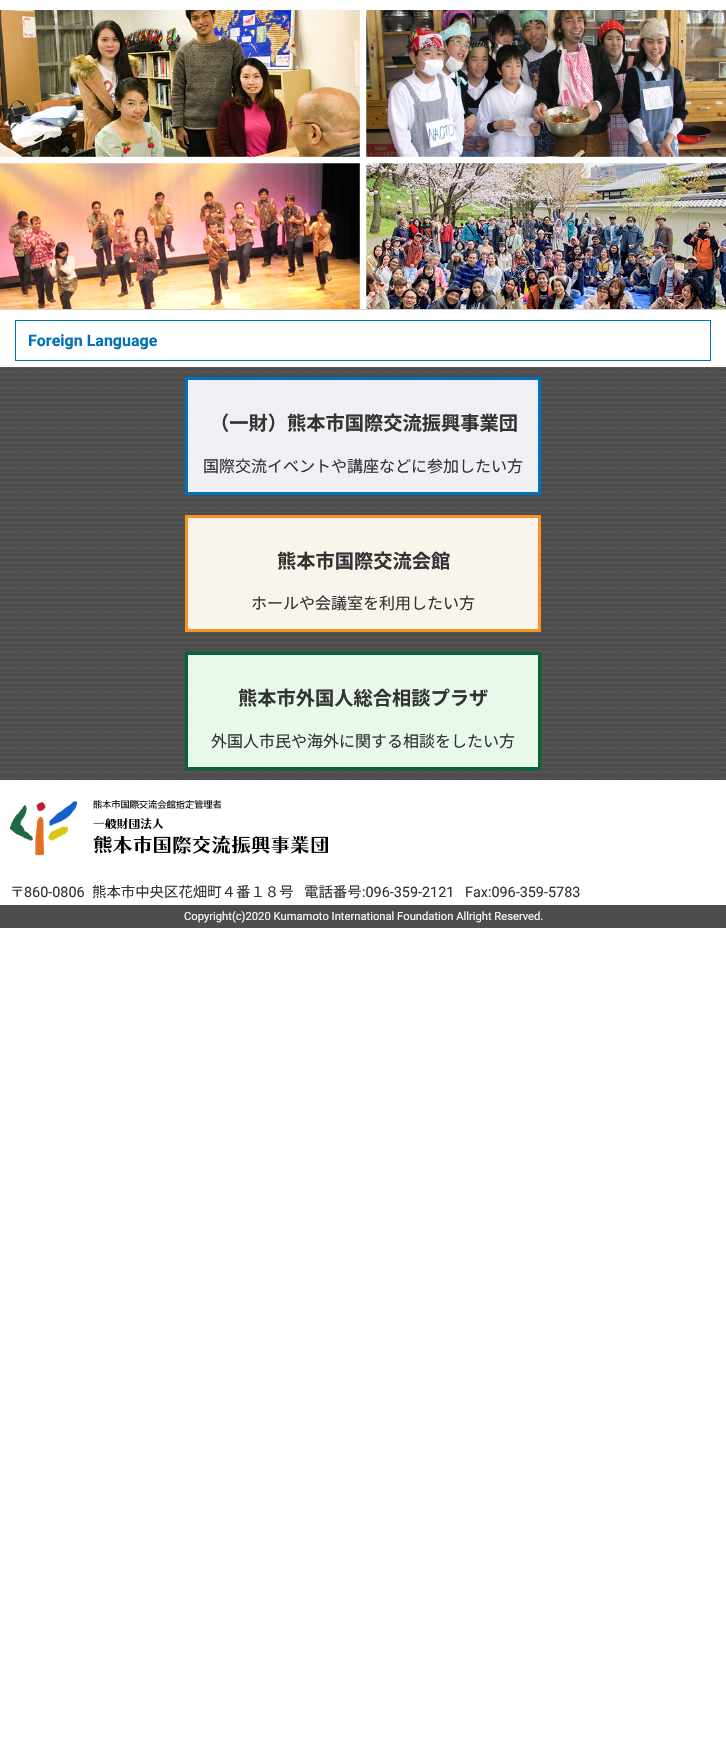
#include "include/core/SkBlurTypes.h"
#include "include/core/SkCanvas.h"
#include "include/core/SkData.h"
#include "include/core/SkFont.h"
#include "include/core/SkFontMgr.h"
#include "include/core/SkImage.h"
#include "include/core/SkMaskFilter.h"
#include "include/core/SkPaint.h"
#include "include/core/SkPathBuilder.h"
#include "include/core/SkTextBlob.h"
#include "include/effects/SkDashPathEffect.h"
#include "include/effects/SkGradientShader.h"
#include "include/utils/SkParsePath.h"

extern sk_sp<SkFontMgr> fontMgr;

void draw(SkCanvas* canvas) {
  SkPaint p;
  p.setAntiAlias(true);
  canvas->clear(SK_ColorWHITE);
  canvas->drawImageRect(SkImages::DeferredFromEncodedData(SkData::MakeFromFileName("images/1.png")), SkRect::MakeLTRB(0, 10, 726, 310), SkSamplingOptions());
  p.setColor(SkColorSetARGB(204, 255, 255, 255));
  canvas->drawRect(SkRect::MakeLTRB(0, 309, 726, 310), p);
  p.setColor(SkColorSetARGB(204, 204, 204, 204));
  canvas->drawRect(SkRect::MakeLTRB(0, 309, 726, 310), p);
  p.setStyle(SkPaint::kStroke_Style);
  p.setStrokeWidth(1);
  p.setColor(SkColorSetRGB(0, 113, 186));
  canvas->drawRect(SkRect::MakeLTRB(15.5f, 320.5f, 710.5f, 360.5f), p);
  canvas->drawImageRect(SkImages::DeferredFromEncodedData(SkData::MakeFromFileName("images/2.png")), SkRect::MakeLTRB(0, 367, 726, 780), SkSamplingOptions());
  p.setStyle(SkPaint::kFill_Style);
  p.setColor(SkColorSetRGB(239, 240, 244));
  canvas->drawRect(SkRect::MakeLTRB(186.5f, 378.5f, 539.5f, 493.5f), p);
  p.setStyle(SkPaint::kStroke_Style);
  p.setStrokeWidth(3);
  p.setColor(SkColorSetRGB(0, 113, 186));
  canvas->drawRect(SkRect::MakeLTRB(186.5f, 378.5f, 539.5f, 493.5f), p);
  p.setStyle(SkPaint::kFill_Style);
  p.setColor(SkColorSetRGB(249, 245, 237));
  canvas->drawRect(SkRect::MakeLTRB(186.5f, 516.5f, 539.5f, 630.5f), p);
  p.setStyle(SkPaint::kStroke_Style);
  p.setColor(SkColorSetRGB(247, 147, 30));
  canvas->drawRect(SkRect::MakeLTRB(186.5f, 516.5f, 539.5f, 630.5f), p);
  p.setStyle(SkPaint::kFill_Style);
  p.setColor(SkColorSetRGB(232, 249, 236));
  canvas->drawRect(SkRect::MakeLTRB(186.5f, 653.5f, 539.5f, 768.5f), p);
  p.setStyle(SkPaint::kStroke_Style);
  p.setColor(SkColorSetRGB(0, 104, 55));
  canvas->drawRect(SkRect::MakeLTRB(186.5f, 653.5f, 539.5f, 768.5f), p);
  canvas->drawImageRect(SkImages::DeferredFromEncodedData(SkData::MakeFromFileName("images/3.png")), SkRect::MakeLTRB(10, 800, 329, 856), SkSamplingOptions());
  p.setStyle(SkPaint::kFill_Style);
  p.setColor(SkColorSetRGB(77, 77, 77));
  canvas->drawRect(SkRect::MakeLTRB(0, 905, 726, 928), p);
  SkFont font1(fontMgr->matchFamilyStyle("Roboto", SkFontStyle::Bold()), 16);
  font1.setSubpixel(true);
  p.setColor(SkColorSetRGB(0, 113, 186));
  canvas->drawString("Foreign Language", 28, 346, font1, p);
  SkFont font2(fontMgr->matchFamilyStyle("Noto Sans CJK JP", SkFontStyle::Bold()), 19.25f);
  font2.setSubpixel(true);
  p.setColor(SkColorSetRGB(51, 51, 51));
  canvas->drawString("（一財）熊本市国際交流振興事業団", 210, 430, font2, p);
  SkFont font3(fontMgr->matchFamilyStyle("Noto Sans CJK JP", SkFontStyle::Normal()), 16);
  font3.setSubpixel(true);
  canvas->drawString("国際交流イベントや講座などに参加したい方", 203, 472, font3, p);
  canvas->drawString("熊本市国際交流会館", 277, 568, font2, p);
  canvas->drawString("ホールや会議室を利用したい方", 251, 609, font3, p);
  canvas->drawString("熊本市外国人総合相談プラザ", 238, 705, font2, p);
  canvas->drawString("外国人市民や海外に関する相談をしたい方", 211, 747, font3, p);
  SkFont font4(fontMgr->matchFamilyStyle("Noto Sans CJK JP", SkFontStyle::Normal()), 14.4f);
  font4.setSubpixel(true);
  canvas->drawString("〒", 10, 897, font4, p);
  SkFont font5(fontMgr->matchFamilyStyle("Roboto", SkFontStyle::Normal()), 14.4f);
  font5.setSubpixel(true);
  canvas->drawString("860-0806", 24, 897, font5, p);
  canvas->drawString("熊本市中央区花畑町４番１８号", 92, 897, font4, p);
  canvas->drawString("電話番号", 304, 897, font4, p);
  canvas->drawString(":096-359-2121", 362, 897, font5, p);
  canvas->drawString("Fax:096-359-5783", 465, 897, font5, p);
  SkFont font6(fontMgr->matchFamilyStyle("Roboto", SkFontStyle::Normal()), 11.2f);
  font6.setSubpixel(true);
  p.setColor(SK_ColorWHITE);
  canvas->drawString("Copyright(c)2020 Kumamoto International Foundation Allright Reserved.", 184, 920, font6, p);
}
